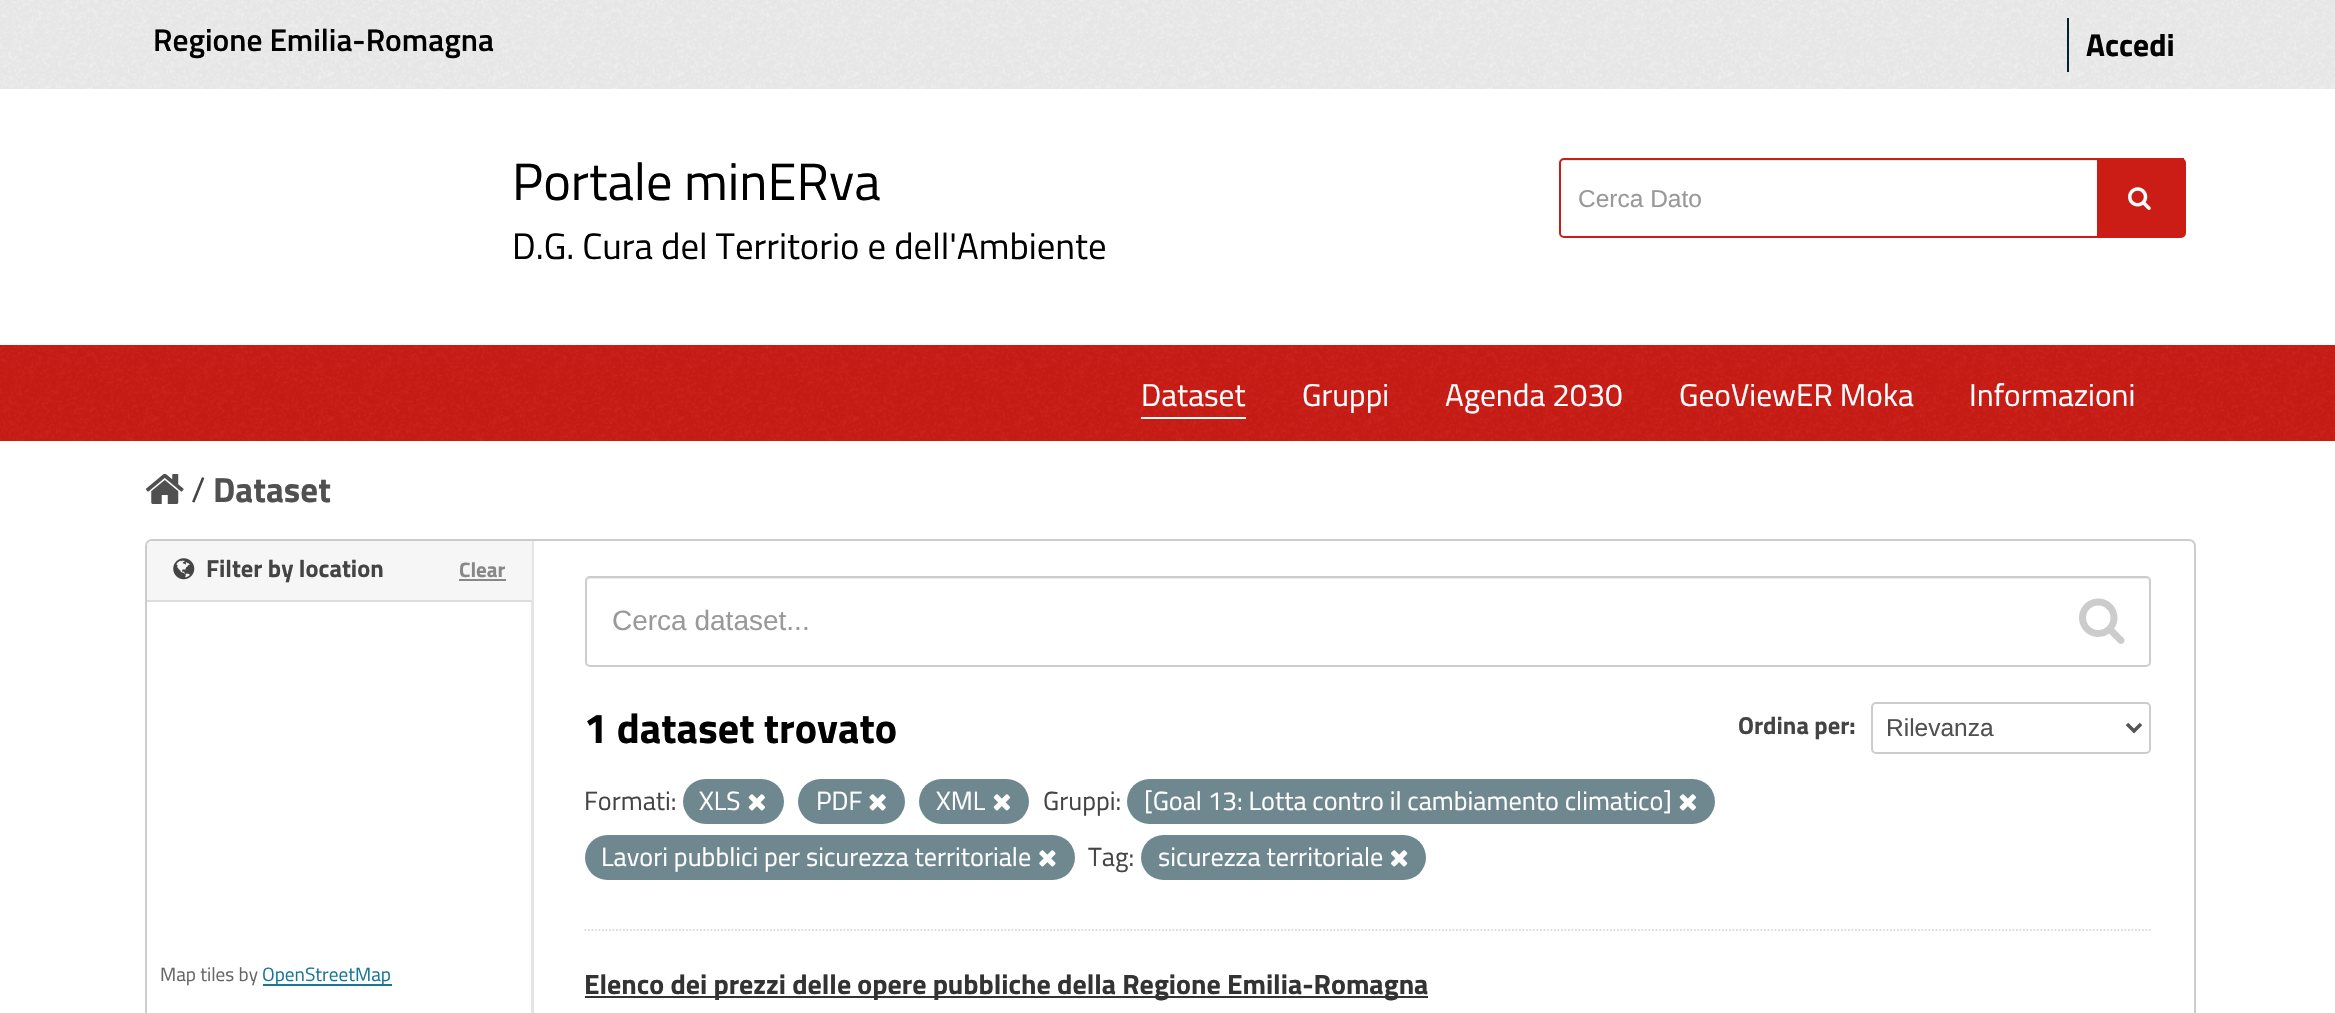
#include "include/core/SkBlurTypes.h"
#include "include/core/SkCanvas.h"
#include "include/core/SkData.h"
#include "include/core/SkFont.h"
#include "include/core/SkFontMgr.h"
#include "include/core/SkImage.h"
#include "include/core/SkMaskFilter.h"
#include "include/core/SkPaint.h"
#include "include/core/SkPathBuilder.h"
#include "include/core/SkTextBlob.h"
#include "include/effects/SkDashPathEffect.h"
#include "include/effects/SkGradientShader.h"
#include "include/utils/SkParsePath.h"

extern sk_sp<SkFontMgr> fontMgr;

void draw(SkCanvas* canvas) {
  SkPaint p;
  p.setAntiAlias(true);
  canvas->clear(SK_ColorWHITE);
  p.setColor(SkColorSetRGB(238, 238, 238));
  canvas->drawRect(SkRect::MakeLTRB(0, 0, 2335, 89), p);
  canvas->drawImageRect(SkImages::DeferredFromEncodedData(SkData::MakeFromFileName("images/1.png")), SkRect::MakeLTRB(0, 0, 2335, 89), SkSamplingOptions());
  p.setColor(SkColorSetRGB(0, 35, 46));
  canvas->drawRect(SkRect::MakeLTRB(2067, 18, 2069, 72), p);
  p.setColor(SkColorSetRGB(236, 236, 236));
  canvas->drawPath(SkPathBuilder().moveTo(1564, 161).lineTo(2180, 161).cubicTo(2182, 161, 2184, 163, 2184, 164).lineTo(2184, 163).cubicTo(2184, 161, 2182, 159, 2180, 159).lineTo(1565, 159).cubicTo(1563, 159, 1561, 161, 1561, 163).lineTo(1561, 164).cubicTo(1561, 163, 1563, 161, 1564, 161).close().detach(), p);
  p.setStyle(SkPaint::kStroke_Style);
  p.setStrokeWidth(2);
  p.setColor(SkColorSetRGB(203, 29, 21));
  canvas->drawRoundRect(SkRect::MakeLTRB(1560, 159, 2185, 237), 4, 4, p);
  p.setStyle(SkPaint::kFill_Style);
  canvas->drawRect(SkRect::MakeLTRB(2097, 158, 2184, 236), p);
  canvas->drawImageRect(SkImages::DeferredFromEncodedData(SkData::MakeFromFileName("images/2.png")), SkRect::MakeLTRB(2128, 187, 2151, 210), SkSamplingOptions());
  canvas->drawRect(SkRect::MakeLTRB(0, 345, 2335, 441), p);
  canvas->drawImageRect(SkImages::DeferredFromEncodedData(SkData::MakeFromFileName("images/3.png")), SkRect::MakeLTRB(0, 345, 2335, 441), SkSamplingOptions());
  p.setColor(SK_ColorWHITE);
  canvas->drawRect(SkRect::MakeLTRB(1141, 417, 1246, 419), p);
  canvas->drawImageRect(SkImages::DeferredFromEncodedData(SkData::MakeFromFileName("images/4.png")), SkRect::MakeLTRB(145, 473, 184, 504), SkSamplingOptions());
  p.setColor(SkColorSetRGB(228, 228, 228));
  canvas->drawRect(SkRect::MakeLTRB(531, 539, 534, 1013), p);
  p.setStyle(SkPaint::kStroke_Style);
  p.setColor(SkColorSetRGB(204, 204, 204));
  canvas->drawRoundRect(SkRect::MakeLTRB(146, 540, 2195, 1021), 6, 6, p);
  p.setStyle(SkPaint::kFill_Style);
  p.setColor(SkColorSetRGB(246, 246, 246));
  canvas->drawPath(SkPathBuilder().moveTo(152, 541).lineTo(532, 541).lineTo(532, 602).lineTo(147, 602).lineTo(147, 546).cubicTo(147, 543, 149, 541, 152, 541).close().detach(), p);
  p.setColor(SkColorSetRGB(221, 221, 221));
  canvas->drawRect(SkRect::MakeLTRB(147, 600, 532, 602), p);
  canvas->drawImageRect(SkImages::DeferredFromEncodedData(SkData::MakeFromFileName("images/5.png")), SkRect::MakeLTRB(173, 558, 195, 580), SkSamplingOptions());
  p.setColor(SkColorSetRGB(136, 136, 136));
  canvas->drawRect(SkRect::MakeLTRB(459, 579, 506, 581), p);
  p.setColor(SkColorSetRGB(24, 119, 148));
  canvas->drawRect(SkRect::MakeLTRB(263, 984, 392, 986), p);
  p.setStyle(SkPaint::kStroke_Style);
  p.setStrokeWidth(1.8f);
  p.setColor(SkColorSetRGB(221, 221, 221));
  p.setPathEffect(SkDashPathEffect::Make({{1.75f, 1.75f}}, 0));
  canvas->drawPath(SkPathBuilder().moveTo(584.5f, 930).lineTo(2151, 930).detach(), p);
  p.setPathEffect(nullptr);
  p.setStyle(SkPaint::kFill_Style);
  p.setColor(SkColorSetRGB(236, 236, 236));
  canvas->drawPath(SkPathBuilder().moveTo(590, 579).lineTo(2146, 579).cubicTo(2147, 579, 2149, 581, 2149, 583).lineTo(2149, 582).cubicTo(2149, 580, 2147, 578, 2145, 578).lineTo(590, 578).cubicTo(588, 578, 586, 580, 586, 582).lineTo(586, 583).cubicTo(586, 581, 588, 579, 590, 579).close().detach(), p);
  p.setStyle(SkPaint::kStroke_Style);
  p.setStrokeWidth(2);
  p.setColor(SkColorSetRGB(204, 204, 204));
  canvas->drawRoundRect(SkRect::MakeLTRB(586, 577, 2150, 666), 4, 4, p);
  canvas->drawImageRect(SkImages::DeferredFromEncodedData(SkData::MakeFromFileName("images/6.png")), SkRect::MakeLTRB(2079, 598, 2125, 644), SkSamplingOptions());
  canvas->drawRoundRect(SkRect::MakeLTRB(1872, 703, 2150, 753), 4, 4, p);
  p.setStrokeWidth(3.5f);
  p.setColor(SkColorSetRGB(85, 85, 85));
  canvas->drawPath(SkPathBuilder().moveTo(2127, 724).lineTo(2134, 731).lineTo(2141, 724).detach(), p);
  p.setStyle(SkPaint::kFill_Style);
  p.setColor(SkColorSetRGB(111, 136, 144));
  canvas->drawRoundRect(SkRect::MakeLTRB(683, 779, 784, 824), 22.5f, 22.5f, p);
  canvas->drawImageRect(SkImages::DeferredFromEncodedData(SkData::MakeFromFileName("images/7.png")), SkRect::MakeLTRB(748, 794, 765, 811), SkSamplingOptions());
  canvas->drawRoundRect(SkRect::MakeLTRB(798, 779, 905, 824), 22.5f, 22.5f, p);
  canvas->drawImageRect(SkImages::DeferredFromEncodedData(SkData::MakeFromFileName("images/8.png")), SkRect::MakeLTRB(869, 794, 886, 811), SkSamplingOptions());
  canvas->drawRoundRect(SkRect::MakeLTRB(919, 779, 1029, 824), 22.5f, 22.5f, p);
  canvas->drawImageRect(SkImages::DeferredFromEncodedData(SkData::MakeFromFileName("images/7.png")), SkRect::MakeLTRB(993, 794, 1010, 811), SkSamplingOptions());
  canvas->drawRoundRect(SkRect::MakeLTRB(1127, 779, 1715, 824), 22.5f, 22.5f, p);
  canvas->drawImageRect(SkImages::DeferredFromEncodedData(SkData::MakeFromFileName("images/7.png")), SkRect::MakeLTRB(1679, 794, 1696, 811), SkSamplingOptions());
  canvas->drawRoundRect(SkRect::MakeLTRB(585, 835, 1075, 880), 22.5f, 22.5f, p);
  canvas->drawImageRect(SkImages::DeferredFromEncodedData(SkData::MakeFromFileName("images/9.png")), SkRect::MakeLTRB(1039, 850, 1056, 867), SkSamplingOptions());
  canvas->drawRoundRect(SkRect::MakeLTRB(1141, 835, 1426, 880), 22.5f, 22.5f, p);
  canvas->drawImageRect(SkImages::DeferredFromEncodedData(SkData::MakeFromFileName("images/10.png")), SkRect::MakeLTRB(1391, 850, 1408, 867), SkSamplingOptions());
  p.setColor(SkColorSetRGB(51, 51, 51));
  canvas->drawRect(SkRect::MakeLTRB(585, 996, 1428, 998), p);
  SkFont font1(fontMgr->matchFamilyStyle("Titillium Web", SkFontStyle(600, SkFontStyle::kNormal_Width, SkFontStyle::kUpright_Slant)), 31.5f);
  font1.setSubpixel(true);
  p.setColor(SK_ColorBLACK);
  canvas->drawString("Regione Emilia-Romagna", 153, 51, font1, p);
  SkFont font2(fontMgr->matchFamilyStyle("Titillium Web", SkFontStyle::Bold()), 31.5f);
  font2.setSubpixel(true);
  canvas->drawString("Accedi", 2086, 56, font2, p);
  SkFont font3(fontMgr->matchFamilyStyle("Titillium Web", SkFontStyle::Normal()), 52.5f);
  font3.setSubpixel(true);
  canvas->drawString("Portale minERva", 512, 200, font3, p);
  SkFont font4(fontMgr->matchFamilyStyle("Titillium Web", SkFontStyle::Normal()), 36.75f);
  font4.setSubpixel(true);
  canvas->drawString("D.G. Cura del Territorio e dell'Ambiente", 512, 259, font4, p);
  SkFont font5(fontMgr->matchFamilyStyle("Liberation Sans", SkFontStyle::Normal()), 24.5f);
  font5.setSubpixel(true);
  p.setColor(SkColorSetRGB(153, 153, 153));
  canvas->drawString("Cerca Dato", 1578, 207, font5, p);
  SkFont font6(fontMgr->matchFamilyStyle("Titillium Web", SkFontStyle::Normal()), 31.5f);
  font6.setSubpixel(true);
  p.setColor(SK_ColorWHITE);
  canvas->drawString("Dataset", 1141, 406, font6, p);
  canvas->drawString("Gruppi", 1302, 406, font6, p);
  canvas->drawString("Agenda 2030", 1445, 406, font6, p);
  canvas->drawString("GeoViewER Moka", 1679, 406, font6, p);
  canvas->drawString("Informazioni", 1969, 406, font6, p);
  SkFont font7(fontMgr->matchFamilyStyle("Titillium Web", SkFontStyle::Normal()), 35);
  font7.setSubpixel(true);
  p.setColor(SkColorSetRGB(68, 68, 68));
  canvas->drawString("/", 191, 502, font7, p);
  SkFont font8(fontMgr->matchFamilyStyle("Titillium Web", SkFontStyle::Bold()), 35);
  font8.setSubpixel(true);
  p.setColor(SkColorSetRGB(80, 80, 80));
  canvas->drawString("Dataset", 213, 502, font8, p);
  SkFont font9(fontMgr->matchFamilyStyle("Titillium Web", SkFontStyle::Bold()), 24.5f);
  font9.setSubpixel(true);
  p.setColor(SkColorSetRGB(68, 68, 68));
  canvas->drawString("Filter by location", 206, 577, font9, p);
  SkFont font10(fontMgr->matchFamilyStyle("Titillium Web", SkFontStyle::Bold()), 21);
  font10.setSubpixel(true);
  p.setColor(SkColorSetRGB(136, 136, 136));
  canvas->drawString("Clear", 459, 577, font10, p);
  SkFont font11(fontMgr->matchFamilyStyle("Titillium Web", SkFontStyle::Normal()), 19.25f);
  font11.setSubpixel(true);
  p.setColor(SkColorSetRGB(102, 102, 102));
  canvas->drawString("Map tiles by", 160, 981, font11, p);
  p.setColor(SkColorSetRGB(24, 119, 148));
  canvas->drawString("OpenStreetMap", 262, 981, font11, p);
  SkFont font12(fontMgr->matchFamilyStyle("Liberation Sans", SkFontStyle::Normal()), 28);
  font12.setSubpixel(true);
  p.setColor(SkColorSetRGB(153, 153, 153));
  canvas->drawString("Cerca dataset...", 612, 630, font12, p);
  SkFont font13(fontMgr->matchFamilyStyle("Titillium Web", SkFontStyle::Bold()), 42);
  font13.setSubpixel(true);
  p.setColor(SK_ColorBLACK);
  canvas->drawString("1 dataset trovato", 584, 743, font13, p);
  p.setColor(SkColorSetRGB(68, 68, 68));
  canvas->drawString("Ordina per:", 1738, 734, font9, p);
  p.setColor(SkColorSetRGB(80, 80, 80));
  canvas->drawString("Rilevanza", 1886, 736, font5, p);
  SkFont font14(fontMgr->matchFamilyStyle("Titillium Web", SkFontStyle::Normal()), 26.25f);
  font14.setSubpixel(true);
  p.setColor(SkColorSetRGB(68, 68, 68));
  canvas->drawString("Formati:", 584, 810, font14, p);
  p.setColor(SK_ColorWHITE);
  canvas->drawString("XLS", 699, 810, font14, p);
  canvas->drawString("PDF", 816, 810, font14, p);
  canvas->drawString("XML", 936, 810, font14, p);
  p.setColor(SkColorSetRGB(68, 68, 68));
  canvas->drawString("Gruppi:", 1043, 810, font14, p);
  p.setColor(SK_ColorWHITE);
  canvas->drawString("[Goal 13: Lotta contro il cambiamento climatico]", 1144, 810, font14, p);
  canvas->drawString("Lavori pubblici per sicurezza territoriale", 601, 866, font14, p);
  p.setColor(SkColorSetRGB(68, 68, 68));
  canvas->drawString("Tag:", 1088, 866, font14, p);
  p.setColor(SK_ColorWHITE);
  canvas->drawString("sicurezza territoriale", 1158, 866, font14, p);
  SkFont font15(fontMgr->matchFamilyStyle("Titillium Web", SkFontStyle::Bold()), 28);
  font15.setSubpixel(true);
  p.setColor(SkColorSetRGB(51, 51, 51));
  canvas->drawString("Elenco dei prezzi delle opere pubbliche della Regione Emilia-Romagna", 584, 994, font15, p);
}
